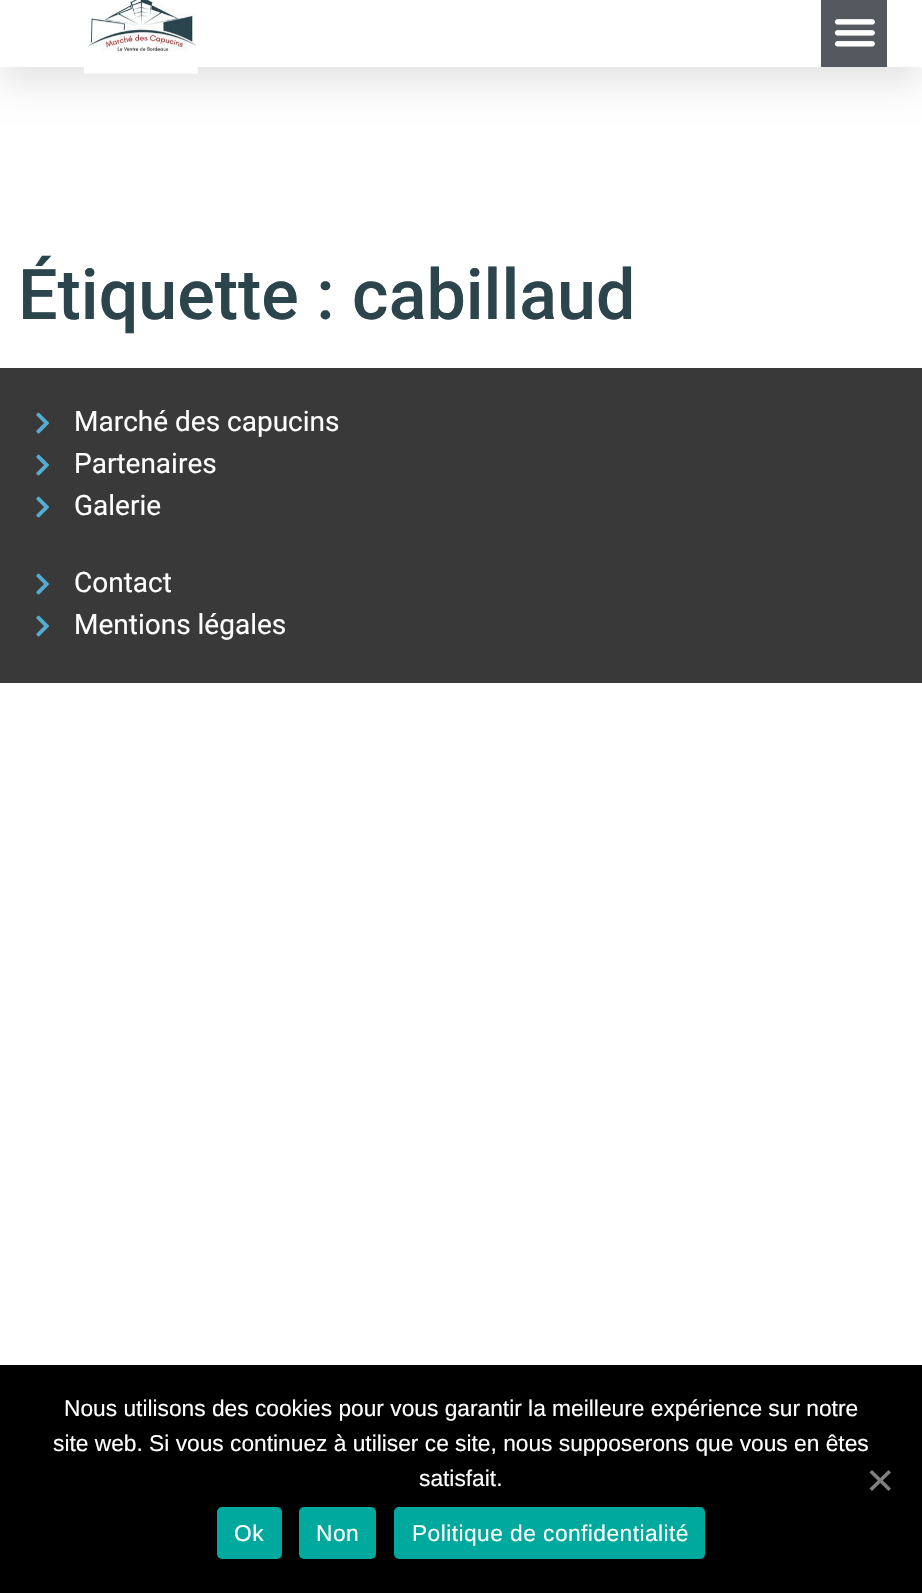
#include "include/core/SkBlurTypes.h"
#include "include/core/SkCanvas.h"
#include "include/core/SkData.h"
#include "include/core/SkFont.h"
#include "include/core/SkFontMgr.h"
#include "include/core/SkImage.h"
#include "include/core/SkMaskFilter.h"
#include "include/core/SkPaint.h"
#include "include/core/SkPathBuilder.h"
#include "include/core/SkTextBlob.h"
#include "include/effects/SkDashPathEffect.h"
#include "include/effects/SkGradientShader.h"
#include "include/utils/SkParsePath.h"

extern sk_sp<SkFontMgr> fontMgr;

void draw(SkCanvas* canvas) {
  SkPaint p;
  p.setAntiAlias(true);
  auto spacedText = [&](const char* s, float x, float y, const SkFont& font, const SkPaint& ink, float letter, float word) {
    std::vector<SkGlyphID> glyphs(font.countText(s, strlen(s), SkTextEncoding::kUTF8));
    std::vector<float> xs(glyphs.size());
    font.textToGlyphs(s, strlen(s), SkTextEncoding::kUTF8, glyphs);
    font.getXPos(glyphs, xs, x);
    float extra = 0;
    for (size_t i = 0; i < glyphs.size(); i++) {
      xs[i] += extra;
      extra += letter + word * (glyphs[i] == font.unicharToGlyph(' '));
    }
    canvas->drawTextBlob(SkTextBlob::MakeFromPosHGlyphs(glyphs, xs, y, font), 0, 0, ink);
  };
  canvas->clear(SK_ColorWHITE);
  p.setColor(SkColorSetARGB(26, 0, 0, 0));
  p.setMaskFilter(SkMaskFilter::MakeBlur(kNormal_SkBlurStyle, 17.5f));
  canvas->drawRect(SkRect::MakeLTRB(0, 18, 922, 84), p);
  p.setMaskFilter(nullptr);
  p.setColor(SK_ColorWHITE);
  canvas->drawRect(SkRect::MakeLTRB(0, 0, 922, 67), p);
  canvas->drawImageRect(SkImages::DeferredFromEncodedData(SkData::MakeFromFileName("images/1.png")), SkRect::MakeLTRB(84, 0, 198, 74), SkSamplingOptions());
  p.setColor(SkColorSetRGB(84, 89, 95));
  canvas->drawRect(SkRect::MakeLTRB(821, 0, 887, 67), p);
  canvas->drawImageRect(SkImages::DeferredFromEncodedData(SkData::MakeFromFileName("images/2.png")), SkRect::MakeLTRB(834, 19, 875, 47), SkSamplingOptions());
  p.setColor(SkColorSetRGB(57, 57, 57));
  canvas->drawRect(SkRect::MakeLTRB(0, 368, 922, 683), p);
  canvas->drawImageRect(SkImages::DeferredFromEncodedData(SkData::MakeFromFileName("images/3.png")), SkRect::MakeLTRB(36, 412, 49, 434), SkSamplingOptions());
  canvas->drawImageRect(SkImages::DeferredFromEncodedData(SkData::MakeFromFileName("images/3.png")), SkRect::MakeLTRB(36, 454, 49, 476), SkSamplingOptions());
  canvas->drawImageRect(SkImages::DeferredFromEncodedData(SkData::MakeFromFileName("images/3.png")), SkRect::MakeLTRB(36, 496, 49, 518), SkSamplingOptions());
  canvas->drawImageRect(SkImages::DeferredFromEncodedData(SkData::MakeFromFileName("images/3.png")), SkRect::MakeLTRB(36, 573, 49, 595), SkSamplingOptions());
  canvas->drawImageRect(SkImages::DeferredFromEncodedData(SkData::MakeFromFileName("images/3.png")), SkRect::MakeLTRB(36, 615, 49, 637), SkSamplingOptions());
  p.setColor(SK_ColorBLACK);
  canvas->drawRect(SkRect::MakeLTRB(0, 1365, 922, 1593), p);
  p.setColor(SkColorSetRGB(128, 128, 128));
  canvas->drawPath(SkPathBuilder().moveTo(888.5f, 1470).lineTo(891, 1472.5f).lineTo(872, 1491).lineTo(869.5f, 1488.5f).close().detach(), p);
  canvas->drawPath(SkPathBuilder().moveTo(869.5f, 1472.5f).lineTo(872, 1470).lineTo(891, 1488.5f).lineTo(888.5f, 1491).close().detach(), p);
  p.setColor(SkColorSetRGB(0, 169, 157));
  canvas->drawRoundRect(SkRect::MakeLTRB(217, 1507, 282, 1559), 5, 5, p);
  canvas->drawRoundRect(SkRect::MakeLTRB(299, 1507, 376, 1559), 5, 5, p);
  canvas->drawRoundRect(SkRect::MakeLTRB(394, 1507, 705, 1559), 5, 5, p);
  SkFont font1(fontMgr->matchFamilyStyle("Roboto", SkFontStyle(500, SkFontStyle::kNormal_Width, SkFontStyle::kUpright_Slant)), 70);
  font1.setSubpixel(true);
  p.setColor(SkColorSetRGB(44, 68, 75));
  canvas->drawString("Étiquette : cabillaud", 18, 319, font1, p);
  SkFont font2(fontMgr->matchFamilyStyle("Roboto", SkFontStyle::Normal()), 28);
  font2.setSubpixel(true);
  p.setColor(SK_ColorWHITE);
  canvas->drawString("Marché des capucins", 74, 431, font2, p);
  canvas->drawString("Partenaires", 74, 473, font2, p);
  canvas->drawString("Galerie", 74, 515, font2, p);
  canvas->drawString("Contact", 74, 592, font2, p);
  canvas->drawString("Mentions légales", 74, 634, font2, p);
  SkFont font3(fontMgr->matchFamilyStyle("Liberation Sans", SkFontStyle::Normal()), 22.75f);
  font3.setSubpixel(true);
  canvas->drawString("Nous utilisons des cookies pour vous garantir la meilleure expérience sur notre", 64, 1416, font3, p);
  canvas->drawString("site web. Si vous continuez à utiliser ce site, nous supposerons que vous en êtes", 53, 1451, font3, p);
  canvas->drawString("satisfait.", 419, 1486, font3, p);
  spacedText("Ok", 234, 1541, font3, p, 0.45f, 0);
  spacedText("Non", 316, 1541, font3, p, 0.45f, 0);
  spacedText("Politique de confidentialité", 412, 1541, font3, p, 0.45f, 0);
}
